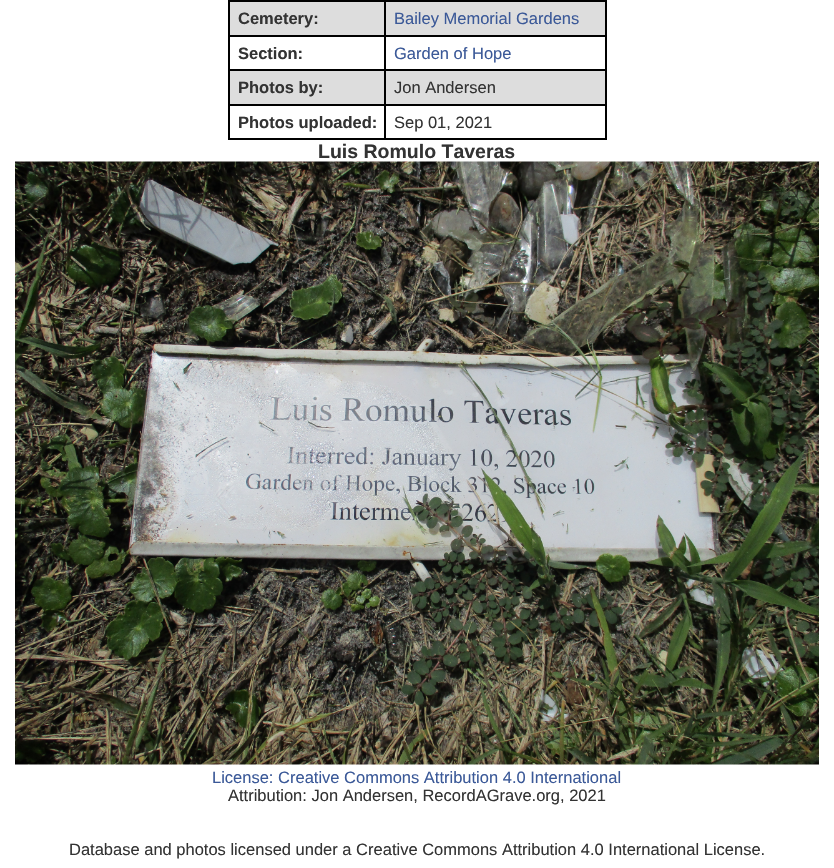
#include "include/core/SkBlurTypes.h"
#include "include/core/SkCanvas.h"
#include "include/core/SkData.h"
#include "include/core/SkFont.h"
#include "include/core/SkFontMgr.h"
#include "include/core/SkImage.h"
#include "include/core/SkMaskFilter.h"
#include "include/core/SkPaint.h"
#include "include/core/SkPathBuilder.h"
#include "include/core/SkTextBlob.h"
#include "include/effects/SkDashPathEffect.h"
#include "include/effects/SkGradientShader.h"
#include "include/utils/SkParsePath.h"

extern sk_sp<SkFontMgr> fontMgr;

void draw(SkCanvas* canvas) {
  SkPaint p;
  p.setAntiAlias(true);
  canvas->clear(SK_ColorWHITE);
  p.setColor(SkColorSetRGB(221, 221, 221));
  canvas->drawRect(SkRect::MakeLTRB(230, 2, 605, 35), p);
  p.setColor(SK_ColorBLACK);
  canvas->drawRect(SkRect::MakeLTRB(384, 0, 606, 2), p);
  canvas->drawRect(SkRect::MakeLTRB(384, 35, 606, 37), p);
  canvas->drawRect(SkRect::MakeLTRB(384, 69, 606, 71), p);
  p.setColor(SkColorSetRGB(221, 221, 221));
  canvas->drawRect(SkRect::MakeLTRB(230, 71, 605, 104), p);
  p.setColor(SK_ColorBLACK);
  canvas->drawRect(SkRect::MakeLTRB(384, 104, 606, 106), p);
  canvas->drawRect(SkRect::MakeLTRB(605, 104, 607, 140), p);
  canvas->drawRect(SkRect::MakeLTRB(384, 138, 606, 140), p);
  canvas->drawRect(SkRect::MakeLTRB(384, 104, 386, 140), p);
  canvas->drawRect(SkRect::MakeLTRB(228, 104, 386, 106), p);
  canvas->drawRect(SkRect::MakeLTRB(384, 69, 386, 105), p);
  canvas->drawRect(SkRect::MakeLTRB(228, 69, 386, 71), p);
  canvas->drawRect(SkRect::MakeLTRB(384, 35, 386, 71), p);
  canvas->drawRect(SkRect::MakeLTRB(228, 35, 386, 37), p);
  canvas->drawRect(SkRect::MakeLTRB(384, 0, 386, 36), p);
  canvas->drawRect(SkRect::MakeLTRB(228, 0, 386, 2), p);
  canvas->drawRect(SkRect::MakeLTRB(228, 138, 386, 140), p);
  canvas->drawRect(SkRect::MakeLTRB(228, 104, 230, 140), p);
  canvas->drawRect(SkRect::MakeLTRB(228, 69, 230, 105), p);
  canvas->drawRect(SkRect::MakeLTRB(228, 35, 230, 71), p);
  canvas->drawRect(SkRect::MakeLTRB(228, 0, 230, 36), p);
  canvas->drawRect(SkRect::MakeLTRB(605, 69, 607, 105), p);
  canvas->drawRect(SkRect::MakeLTRB(605, 35, 607, 71), p);
  canvas->drawRect(SkRect::MakeLTRB(605, 0, 607, 36), p);
  canvas->drawImageRect(SkImages::DeferredFromEncodedData(SkData::MakeFromFileName("images/1.png")), SkRect::MakeLTRB(15, 161, 819, 765), SkSamplingOptions());
  SkFont font1(fontMgr->matchFamilyStyle("Liberation Sans", SkFontStyle::Bold()), 16.5f);
  font1.setSubpixel(true);
  p.setColor(SkColorSetRGB(51, 51, 51));
  canvas->drawString("Cemetery:", 238, 24, font1, p);
  SkFont font2(fontMgr->matchFamilyStyle("Liberation Sans", SkFontStyle::Normal()), 16.5f);
  font2.setSubpixel(true);
  p.setColor(SkColorSetRGB(59, 89, 152));
  canvas->drawString("Bailey Memorial Gardens", 394, 24, font2, p);
  p.setColor(SkColorSetRGB(51, 51, 51));
  canvas->drawString("Section:", 238, 59, font1, p);
  p.setColor(SkColorSetRGB(59, 89, 152));
  canvas->drawString("Garden of Hope", 394, 59, font2, p);
  p.setColor(SkColorSetRGB(51, 51, 51));
  canvas->drawString("Photos by:", 238, 93, font1, p);
  canvas->drawString("Jon Andersen", 394, 93, font2, p);
  canvas->drawString("Photos uploaded:", 238, 128, font1, p);
  canvas->drawString("Sep 01, 2021", 394, 128, font2, p);
  SkFont font3(fontMgr->matchFamilyStyle("Liberation Sans", SkFontStyle::Bold()), 19.5f);
  font3.setSubpixel(true);
  canvas->drawString("Luis Romulo Taveras", 318, 158, font3, p);
  p.setColor(SkColorSetRGB(59, 89, 152));
  canvas->drawString("License: Creative Commons Attribution 4.0 International", 212, 783, font2, p);
  p.setColor(SkColorSetRGB(51, 51, 51));
  canvas->drawString("Attribution: Jon Andersen, RecordAGrave.org, 2021", 228, 801, font2, p);
  canvas->drawString("Database and photos licensed under a Creative Commons Attribution 4.0 International License.", 69, 855, font2, p);
}
